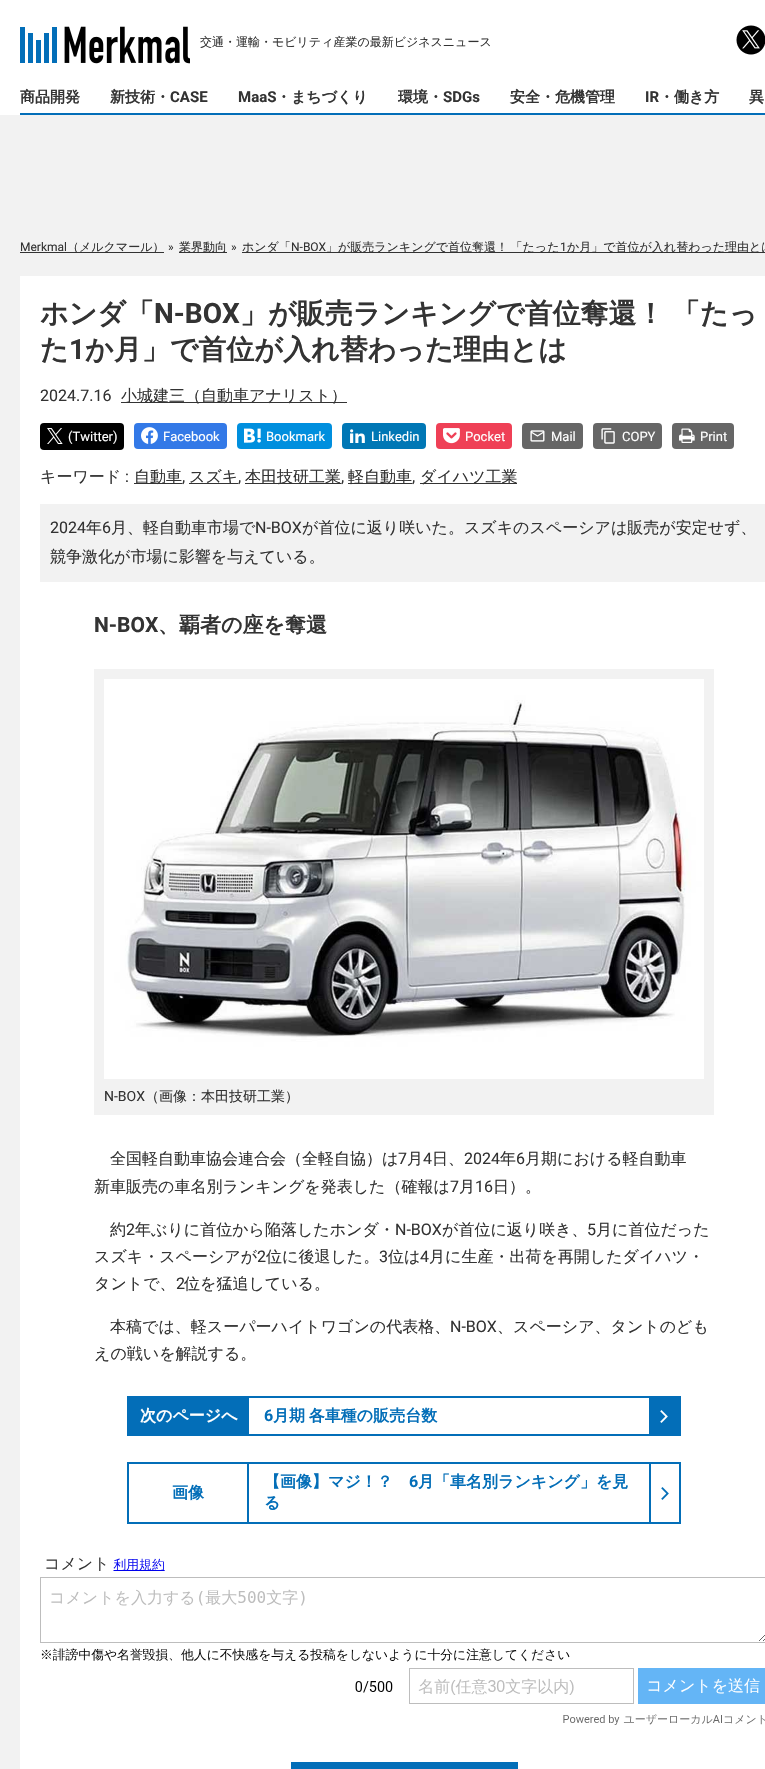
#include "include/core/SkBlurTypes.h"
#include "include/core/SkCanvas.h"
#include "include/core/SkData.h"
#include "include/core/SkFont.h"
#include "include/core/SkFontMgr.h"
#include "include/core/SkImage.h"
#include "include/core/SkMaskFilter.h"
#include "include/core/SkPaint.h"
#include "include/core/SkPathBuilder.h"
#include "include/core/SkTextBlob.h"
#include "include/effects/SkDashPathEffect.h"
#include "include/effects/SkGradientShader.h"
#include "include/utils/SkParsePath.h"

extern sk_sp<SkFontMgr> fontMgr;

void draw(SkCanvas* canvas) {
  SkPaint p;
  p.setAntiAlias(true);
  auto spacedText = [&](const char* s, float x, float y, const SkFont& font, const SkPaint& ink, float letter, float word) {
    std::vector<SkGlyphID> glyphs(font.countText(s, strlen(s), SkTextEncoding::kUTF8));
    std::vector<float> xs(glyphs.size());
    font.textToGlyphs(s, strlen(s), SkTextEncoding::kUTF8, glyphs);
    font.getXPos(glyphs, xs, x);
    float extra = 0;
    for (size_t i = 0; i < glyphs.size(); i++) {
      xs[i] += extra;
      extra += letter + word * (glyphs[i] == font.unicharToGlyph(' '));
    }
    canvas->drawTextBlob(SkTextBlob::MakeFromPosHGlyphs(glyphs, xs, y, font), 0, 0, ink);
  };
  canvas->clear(SkColorSetRGB(242, 242, 242));
  p.setColor(SK_ColorWHITE);
  canvas->drawRect(SkRect::MakeLTRB(0, 0, 765, 115), p);
  canvas->drawImageRect(SkImages::DeferredFromEncodedData(SkData::MakeFromFileName("images/1.png")), SkRect::MakeLTRB(20, 26, 190, 64), SkSamplingOptions());
  canvas->drawImageRect(SkImages::DeferredFromEncodedData(SkData::MakeFromFileName("images/2.png")), SkRect::MakeLTRB(736, 25, 765, 55), SkSamplingOptions());
  p.setColor(SkColorSetRGB(3, 110, 184));
  canvas->drawRect(SkRect::MakeLTRB(20, 113, 765, 115), p);
  p.setColor(SkColorSetRGB(51, 51, 51));
  canvas->drawRect(SkRect::MakeLTRB(20, 252, 164, 253), p);
  canvas->drawRect(SkRect::MakeLTRB(179, 252, 227, 253), p);
  canvas->drawRect(SkRect::MakeLTRB(242, 252, 765, 253), p);
  p.setColor(SK_ColorWHITE);
  canvas->drawRect(SkRect::MakeLTRB(20, 276, 765, 1769), p);
  p.setColor(SkColorSetRGB(51, 51, 51));
  canvas->drawRect(SkRect::MakeLTRB(121, 402, 347, 403), p);
  p.setColor(SK_ColorBLACK);
  canvas->drawRoundRect(SkRect::MakeLTRB(40, 423, 124, 450), 4, 4, p);
  canvas->drawImageRect(SkImages::DeferredFromEncodedData(SkData::MakeFromFileName("images/3.png")), SkRect::MakeLTRB(47, 428, 63, 444), SkSamplingOptions());
  p.setColor(SkColorSetRGB(51, 121, 231));
  canvas->drawRoundRect(SkRect::MakeLTRB(134, 423, 227, 449), 4, 4, p);
  canvas->drawImageRect(SkImages::DeferredFromEncodedData(SkData::MakeFromFileName("images/4.png")), SkRect::MakeLTRB(141, 427, 158, 444), SkSamplingOptions());
  p.setColor(SkColorSetRGB(0, 143, 222));
  canvas->drawRoundRect(SkRect::MakeLTRB(237, 423, 332, 449), 4, 4, p);
  canvas->drawImageRect(SkImages::DeferredFromEncodedData(SkData::MakeFromFileName("images/5.png")), SkRect::MakeLTRB(244, 428, 261, 443), SkSamplingOptions());
  p.setColor(SkColorSetRGB(0, 119, 181));
  canvas->drawRoundRect(SkRect::MakeLTRB(342, 423, 426, 449), 4, 4, p);
  canvas->drawImageRect(SkImages::DeferredFromEncodedData(SkData::MakeFromFileName("images/6.png")), SkRect::MakeLTRB(350, 429, 365, 443), SkSamplingOptions());
  p.setColor(SkColorSetRGB(239, 64, 86));
  canvas->drawRoundRect(SkRect::MakeLTRB(436, 423, 512, 449), 4, 4, p);
  canvas->drawImageRect(SkImages::DeferredFromEncodedData(SkData::MakeFromFileName("images/7.png")), SkRect::MakeLTRB(443, 428, 460, 444), SkSamplingOptions());
  p.setColor(SkColorSetRGB(102, 102, 102));
  canvas->drawRoundRect(SkRect::MakeLTRB(522, 423, 583, 449), 4, 4, p);
  canvas->drawImageRect(SkImages::DeferredFromEncodedData(SkData::MakeFromFileName("images/8.png")), SkRect::MakeLTRB(530, 430, 545, 442), SkSamplingOptions());
  canvas->drawRoundRect(SkRect::MakeLTRB(593, 423, 662, 449), 4, 4, p);
  canvas->drawImageRect(SkImages::DeferredFromEncodedData(SkData::MakeFromFileName("images/9.png")), SkRect::MakeLTRB(601, 428, 615, 444), SkSamplingOptions());
  canvas->drawRoundRect(SkRect::MakeLTRB(672, 423, 734, 449), 4, 4, p);
  canvas->drawImageRect(SkImages::DeferredFromEncodedData(SkData::MakeFromFileName("images/10.png")), SkRect::MakeLTRB(679, 428, 695, 443), SkSamplingOptions());
  p.setColor(SkColorSetRGB(51, 51, 51));
  canvas->drawRect(SkRect::MakeLTRB(134, 483, 182, 484), p);
  canvas->drawRect(SkRect::MakeLTRB(189, 483, 238, 484), p);
  canvas->drawRect(SkRect::MakeLTRB(245, 483, 341, 484), p);
  canvas->drawRect(SkRect::MakeLTRB(348, 483, 412, 484), p);
  canvas->drawRect(SkRect::MakeLTRB(420, 483, 517, 484), p);
  p.setColor(SkColorSetRGB(242, 242, 242));
  canvas->drawRect(SkRect::MakeLTRB(40, 504, 765, 582), p);
  canvas->drawRect(SkRect::MakeLTRB(94, 669, 714, 1115), p);
  canvas->drawImageRect(SkImages::DeferredFromEncodedData(SkData::MakeFromFileName("images/11.png")), SkRect::MakeLTRB(104, 679, 704, 1079), SkSamplingOptions());
  p.setStyle(SkPaint::kStroke_Style);
  p.setStrokeWidth(2);
  p.setColor(SkColorSetRGB(3, 110, 184));
  canvas->drawRect(SkRect::MakeLTRB(128, 1397, 680, 1435), p);
  p.setStyle(SkPaint::kFill_Style);
  canvas->drawRect(SkRect::MakeLTRB(129, 1398, 249, 1434), p);
  canvas->drawRect(SkRect::MakeLTRB(649, 1398, 679, 1434), p);
  canvas->drawImageRect(SkImages::DeferredFromEncodedData(SkData::MakeFromFileName("images/12.png")), SkRect::MakeLTRB(660, 1410, 668, 1423), SkSamplingOptions());
  p.setStyle(SkPaint::kStroke_Style);
  canvas->drawRect(SkRect::MakeLTRB(128, 1463, 680, 1523), p);
  p.setStyle(SkPaint::kFill_Style);
  canvas->drawRect(SkRect::MakeLTRB(247, 1464, 249, 1522), p);
  canvas->drawImageRect(SkImages::DeferredFromEncodedData(SkData::MakeFromFileName("images/13.png")), SkRect::MakeLTRB(661, 1487, 669, 1500), SkSamplingOptions());
  canvas->drawRect(SkRect::MakeLTRB(649, 1464, 651, 1522), p);
  canvas->drawImageRect(SkImages::DeferredFromEncodedData(SkData::MakeFromFileName("images/14.png")), SkRect::MakeLTRB(40, 1557, 765, 1725), SkSamplingOptions());
  p.setStyle(SkPaint::kStroke_Style);
  canvas->drawRect(SkRect::MakeLTRB(292, 1763, 517, 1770), p);
  p.setStyle(SkPaint::kFill_Style);
  canvas->drawRect(SkRect::MakeLTRB(293, 1764, 516, 1769), p);
  SkFont font1(fontMgr->matchFamilyStyle("WenQuanYi Zen Hei", SkFontStyle(500, SkFontStyle::kNormal_Width, SkFontStyle::kUpright_Slant)), 12);
  font1.setSubpixel(true);
  p.setColor(SkColorSetRGB(51, 51, 51));
  canvas->drawString("交通・運輸・モビリティ産業の最新ビジネスニュース", 200, 46, font1, p);
  SkFont font2(fontMgr->matchFamilyStyle("WenQuanYi Zen Hei", SkFontStyle::Bold()), 15);
  font2.setSubpixel(true);
  canvas->drawString("商品開発", 20, 102, font2, p);
  canvas->drawString("新技術・", 110, 102, font2, p);
  SkFont font3(fontMgr->matchFamilyStyle("Roboto", SkFontStyle::Bold()), 15);
  font3.setSubpixel(true);
  canvas->drawString("CASE", 170, 102, font3, p);
  canvas->drawString("MaaS", 238, 102, font3, p);
  canvas->drawString("・まちづくり", 276, 102, font2, p);
  canvas->drawString("環境・", 398, 102, font2, p);
  canvas->drawString("SDGs", 443, 102, font3, p);
  canvas->drawString("安全・危機管理", 510, 102, font2, p);
  canvas->drawString("IR", 645, 102, font3, p);
  canvas->drawString("・働き方", 659, 102, font2, p);
  canvas->drawString("異", 749, 102, font2, p);
  SkFont font4(fontMgr->matchFamilyStyle("Roboto", SkFontStyle::Normal()), 12);
  font4.setSubpixel(true);
  canvas->drawString("Merkmal", 20, 251, font4, p);
  canvas->drawString("（メルクマール）", 67, 251, font1, p);
  canvas->drawString("»", 168, 251, font4, p);
  canvas->drawString("業界動向", 179, 251, font1, p);
  canvas->drawString("»", 231, 251, font4, p);
  canvas->drawString("ホンダ「", 242, 251, font1, p);
  canvas->drawString("N-BOX", 291, 251, font4, p);
  spacedText("」が販売ランキングで首位奪還！ 「たった", 326, 251, font1, p, 0, -1);
  canvas->drawString("1", 560, 251, font4, p);
  canvas->drawString("か月」で首位が入れ替わった理由とは", 567, 251, font1, p);
  SkFont font5(fontMgr->matchFamilyStyle("WenQuanYi Zen Hei", SkFontStyle::Bold()), 28);
  font5.setSubpixel(true);
  canvas->drawString("ホンダ「", 40, 323, font5, p);
  SkFont font6(fontMgr->matchFamilyStyle("Roboto", SkFontStyle::Bold()), 28);
  font6.setSubpixel(true);
  canvas->drawString("N-BOX", 154, 323, font6, p);
  spacedText("」が販売ランキングで首位奪還！ 「たっ", 240, 323, font5, p, 0, -1);
  canvas->drawString("た", 40, 359, font5, p);
  canvas->drawString("1", 69, 359, font6, p);
  canvas->drawString("か月」で首位が入れ替わった理由とは", 85, 359, font5, p);
  SkFont font7(fontMgr->matchFamilyStyle("Roboto", SkFontStyle::Normal()), 16);
  font7.setSubpixel(true);
  canvas->drawString("2024.7.16", 40, 401, font7, p);
  SkFont font8(fontMgr->matchFamilyStyle("WenQuanYi Zen Hei", SkFontStyle(500, SkFontStyle::kNormal_Width, SkFontStyle::kUpright_Slant)), 16);
  font8.setSubpixel(true);
  canvas->drawString("小城建三（自動車アナリスト）", 121, 401, font8, p);
  SkFont font9(fontMgr->matchFamilyStyle("Roboto", SkFontStyle::Normal()), 13);
  font9.setSubpixel(true);
  p.setColor(SK_ColorWHITE);
  canvas->drawString("(Twitter)", 68, 441, font9, p);
  canvas->drawString("Facebook", 163, 441, font9, p);
  canvas->drawString("Bookmark", 266, 441, font9, p);
  canvas->drawString("Linkedin", 371, 441, font9, p);
  canvas->drawString("Pocket", 465, 441, font9, p);
  canvas->drawString("Mail", 551, 441, font9, p);
  canvas->drawString("COPY", 622, 441, font9, p);
  canvas->drawString("Print", 700, 441, font9, p);
  p.setColor(SkColorSetRGB(51, 51, 51));
  canvas->drawString("キーワード", 40, 482, font8, p);
  canvas->drawString(":", 125, 482, font7, p);
  canvas->drawString("自動車", 134, 482, font8, p);
  canvas->drawString(",", 182, 482, font7, p);
  canvas->drawString("スズキ", 189, 482, font8, p);
  canvas->drawString(",", 238, 482, font7, p);
  canvas->drawString("本田技研工業", 245, 482, font8, p);
  canvas->drawString(",", 341, 482, font7, p);
  canvas->drawString("軽自動車", 348, 482, font8, p);
  canvas->drawString(",", 412, 482, font7, p);
  canvas->drawString("ダイハツ工業", 420, 482, font8, p);
  canvas->drawString("2024", 50, 533, font7, p);
  canvas->drawString("年", 86, 533, font8, p);
  canvas->drawString("6", 102, 533, font7, p);
  canvas->drawString("月、軽自動車市場で", 111, 533, font8, p);
  canvas->drawString("N-BOX", 255, 533, font7, p);
  canvas->drawString("が首位に返り咲いた。スズキのスペーシアは販売が安定せず、", 302, 533, font8, p);
  canvas->drawString("競争激化が市場に影響を与えている。", 50, 562, font8, p);
  SkFont font10(fontMgr->matchFamilyStyle("Roboto", SkFontStyle::Bold()), 21);
  font10.setSubpixel(true);
  canvas->drawString("N-BOX", 94, 632, font10, p);
  SkFont font11(fontMgr->matchFamilyStyle("WenQuanYi Zen Hei", SkFontStyle::Bold()), 21);
  font11.setSubpixel(true);
  canvas->drawString("、覇者の座を奪還", 158, 632, font11, p);
  SkFont font12(fontMgr->matchFamilyStyle("Roboto", SkFontStyle::Normal()), 14);
  font12.setSubpixel(true);
  canvas->drawString("N-BOX", 104, 1101, font12, p);
  SkFont font13(fontMgr->matchFamilyStyle("WenQuanYi Zen Hei", SkFontStyle(500, SkFontStyle::kNormal_Width, SkFontStyle::kUpright_Slant)), 14);
  font13.setSubpixel(true);
  canvas->drawString("（画像：本田技研工業）", 145, 1101, font13, p);
  canvas->drawString("全国軽自動車協会連合会（全軽自協）は", 110, 1164, font8, p);
  canvas->drawString("7", 398, 1164, font7, p);
  canvas->drawString("月", 407, 1164, font8, p);
  canvas->drawString("4", 423, 1164, font7, p);
  canvas->drawString("日、", 432, 1164, font8, p);
  canvas->drawString("2024", 464, 1164, font7, p);
  canvas->drawString("年", 500, 1164, font8, p);
  canvas->drawString("6", 516, 1164, font7, p);
  canvas->drawString("月期における軽自動車", 525, 1164, font8, p);
  canvas->drawString("新車販売の車名別ランキングを発表した（確報は", 94, 1192, font8, p);
  canvas->drawString("7", 450, 1192, font7, p);
  canvas->drawString("月", 459, 1192, font8, p);
  canvas->drawString("16", 475, 1192, font7, p);
  canvas->drawString("日）。", 493, 1192, font8, p);
  canvas->drawString("約", 110, 1235, font8, p);
  canvas->drawString("2", 126, 1235, font7, p);
  canvas->drawString("年ぶりに首位から陥落したホンダ・", 135, 1235, font8, p);
  canvas->drawString("N-BOX", 395, 1235, font7, p);
  canvas->drawString("が首位に返り咲き、", 442, 1235, font8, p);
  canvas->drawString("5", 587, 1235, font7, p);
  canvas->drawString("月に首位だった", 596, 1235, font8, p);
  canvas->drawString("スズキ・スペーシアが", 94, 1262, font8, p);
  canvas->drawString("2", 257, 1262, font7, p);
  canvas->drawString("位に後退した。", 266, 1262, font8, p);
  canvas->drawString("3", 379, 1262, font7, p);
  canvas->drawString("位は", 388, 1262, font8, p);
  canvas->drawString("4", 420, 1262, font7, p);
  canvas->drawString("月に生産・出荷を再開したダイハツ・", 429, 1262, font8, p);
  canvas->drawString("タントで、", 94, 1289, font8, p);
  canvas->drawString("2", 176, 1289, font7, p);
  canvas->drawString("位を猛追している。", 184, 1289, font8, p);
  canvas->drawString("本稿では、軽スーパーハイトワゴンの代表格、", 110, 1332, font8, p);
  canvas->drawString("N-BOX", 450, 1332, font7, p);
  canvas->drawString("、スペーシア、タントのども", 497, 1332, font8, p);
  canvas->drawString("えの戦いを解説する。", 94, 1359, font8, p);
  SkFont font14(fontMgr->matchFamilyStyle("WenQuanYi Zen Hei", SkFontStyle::Bold()), 16);
  font14.setSubpixel(true);
  p.setColor(SK_ColorWHITE);
  canvas->drawString("次のページへ", 140, 1421, font14, p);
  SkFont font15(fontMgr->matchFamilyStyle("Roboto", SkFontStyle::Bold()), 16);
  font15.setSubpixel(true);
  p.setColor(SkColorSetRGB(3, 110, 184));
  canvas->drawString("6", 264, 1421, font15, p);
  spacedText("月期 各車種の販売台数", 273, 1421, font14, p, 0, -1);
  canvas->drawString("画像", 172, 1498, font14, p);
  canvas->drawString("【画像】マジ！？", 264, 1487, font14, p);
  canvas->drawString("6", 409, 1487, font15, p);
  canvas->drawString("月「車名別ランキング」を見", 418, 1487, font14, p);
  canvas->drawString("る", 264, 1508, font14, p);
}
